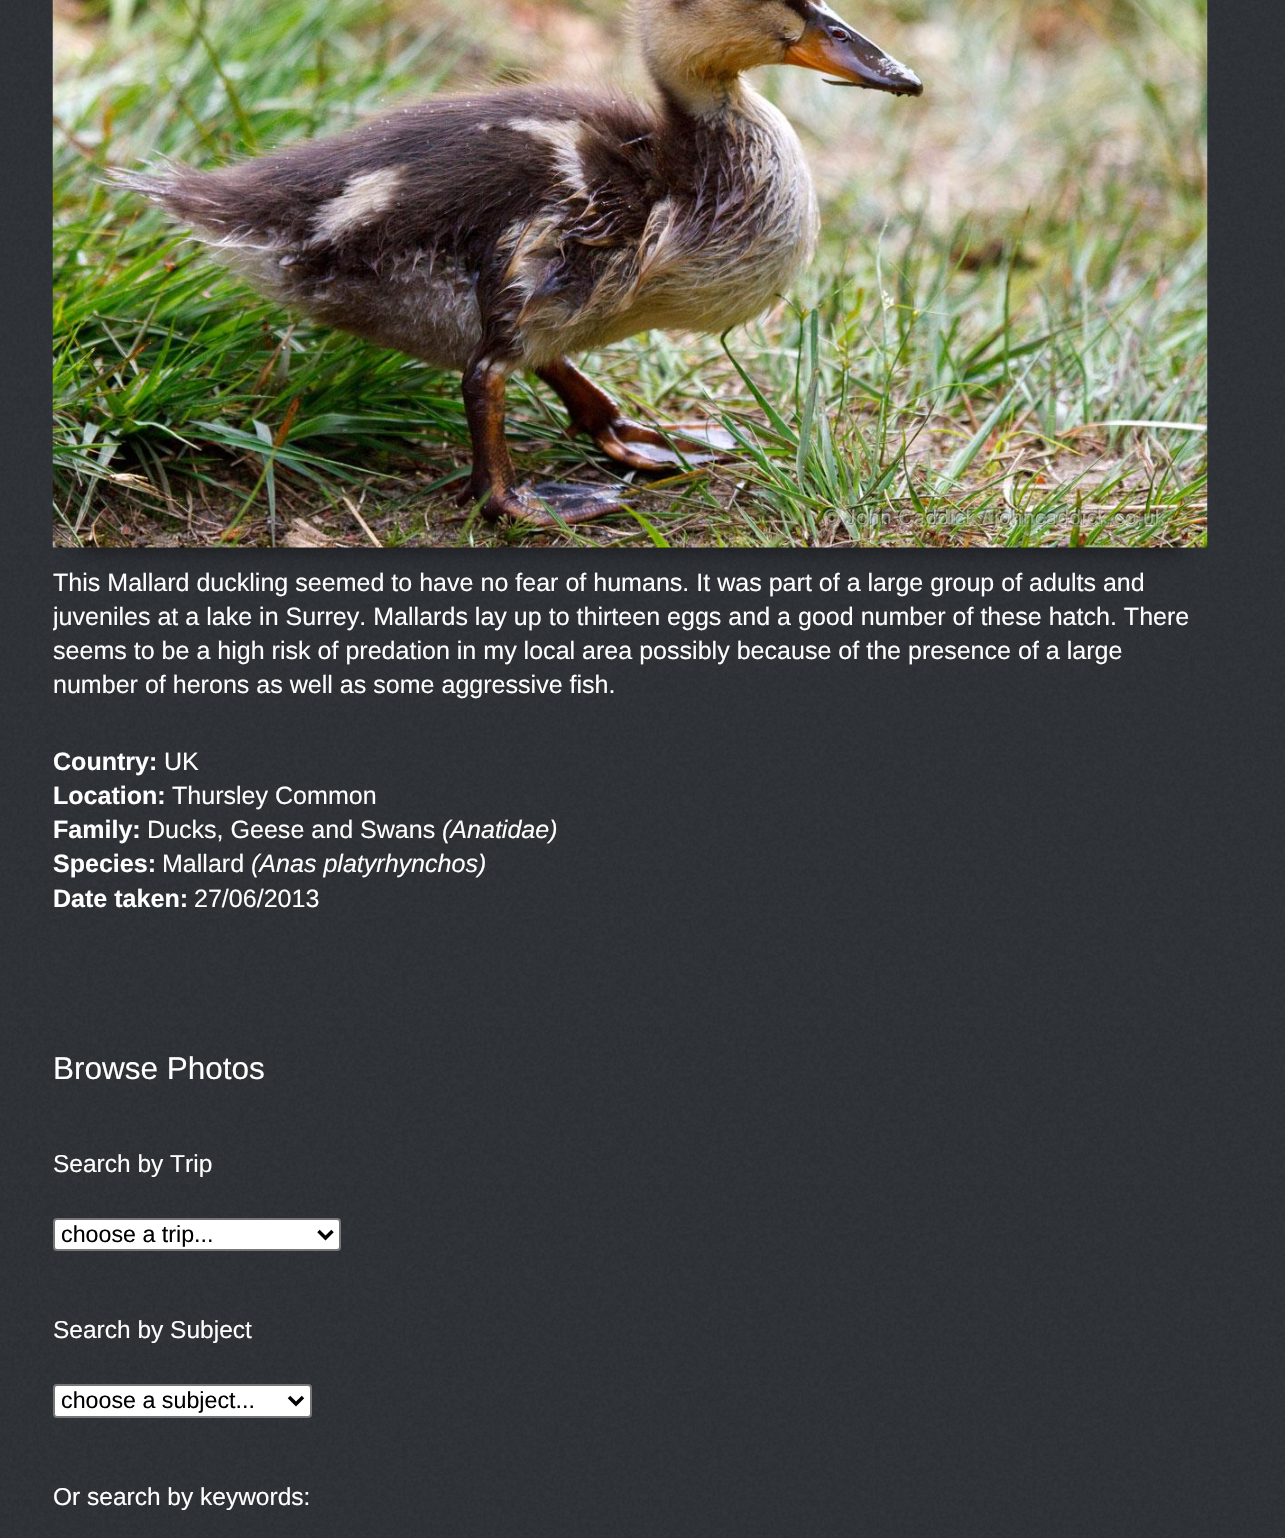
#include "include/core/SkBlurTypes.h"
#include "include/core/SkCanvas.h"
#include "include/core/SkData.h"
#include "include/core/SkFont.h"
#include "include/core/SkFontMgr.h"
#include "include/core/SkImage.h"
#include "include/core/SkMaskFilter.h"
#include "include/core/SkPaint.h"
#include "include/core/SkPathBuilder.h"
#include "include/core/SkTextBlob.h"
#include "include/effects/SkDashPathEffect.h"
#include "include/effects/SkGradientShader.h"
#include "include/utils/SkParsePath.h"

extern sk_sp<SkFontMgr> fontMgr;

void draw(SkCanvas* canvas) {
  SkPaint p;
  p.setAntiAlias(true);
  canvas->clear(SK_ColorWHITE);
  canvas->drawImageRect(SkImages::DeferredFromEncodedData(SkData::MakeFromFileName("images/1.png")), SkRect::MakeLTRB(0, 0, 1285, 1538), SkSamplingOptions());
  canvas->save();
  canvas->clipRect(SkRect::MakeLTRB(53, 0, 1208, 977));
  p.setColor(SkColorSetARGB(153, 0, 0, 0));
  p.setMaskFilter(SkMaskFilter::MakeBlur(kNormal_SkBlurStyle, 13));
  canvas->drawRoundRect(SkRect::MakeLTRB(70, 224, 1190, 548), 18, 18, p);
  p.setMaskFilter(nullptr);
  canvas->restore();
  canvas->drawImageRect(SkImages::DeferredFromEncodedData(SkData::MakeFromFileName("images/2.png")), SkRect::MakeLTRB(52, 0, 1208, 548), SkSamplingOptions());
  p.setColor(SK_ColorWHITE);
  canvas->drawRoundRect(SkRect::MakeLTRB(54, 1219, 340, 1250), 3, 3, p);
  p.setStyle(SkPaint::kStroke_Style);
  p.setStrokeWidth(2);
  p.setColor(SkColorSetRGB(118, 118, 118));
  canvas->drawRoundRect(SkRect::MakeLTRB(54, 1219, 340, 1250), 3, 3, p);
  p.setStrokeWidth(3.5f);
  p.setColor(SK_ColorBLACK);
  canvas->drawPath(SkPathBuilder().moveTo(318.5f, 1231).lineTo(325.5f, 1238).lineTo(332.5f, 1231).detach(), p);
  p.setStyle(SkPaint::kFill_Style);
  p.setColor(SK_ColorWHITE);
  canvas->drawRoundRect(SkRect::MakeLTRB(54, 1385, 311, 1417), 3, 3, p);
  p.setStyle(SkPaint::kStroke_Style);
  p.setStrokeWidth(2);
  p.setColor(SkColorSetRGB(118, 118, 118));
  canvas->drawRoundRect(SkRect::MakeLTRB(54, 1385, 311, 1417), 3, 3, p);
  p.setStrokeWidth(3.5f);
  p.setColor(SK_ColorBLACK);
  canvas->drawPath(SkPathBuilder().moveTo(289, 1397).lineTo(296, 1404).lineTo(303, 1397).detach(), p);
  SkFont font1(fontMgr->matchFamilyStyle("Liberation Sans", SkFontStyle::Normal()), 25.05f);
  font1.setSubpixel(true);
  p.setStyle(SkPaint::kFill_Style);
  p.setColor(SK_ColorWHITE);
  canvas->drawString("This Mallard duckling seemed to have no fear of humans. It was part of a large group of adults and", 53, 591, font1, p);
  canvas->save();
  canvas->clipRect(SkRect::MakeLTRB(53, 0, 1208, 977));
  canvas->drawString("juveniles at a lake in Surrey. Mallards lay up to thirteen eggs and a good number of these hatch. There", 53, 625, font1, p);
  canvas->restore();
  canvas->drawString("seems to be a high risk of predation in my local area possibly because of the presence of a large", 53, 659, font1, p);
  canvas->drawString("number of herons as well as some aggressive fish.", 53, 693, font1, p);
  SkFont font2(fontMgr->matchFamilyStyle("Liberation Sans", SkFontStyle::Bold()), 25.05f);
  font2.setSubpixel(true);
  canvas->drawString("Country:", 53, 770, font2, p);
  canvas->drawString("UK", 164, 770, font1, p);
  canvas->drawString("Location:", 53, 804, font2, p);
  canvas->drawString("Thursley Common", 172, 804, font1, p);
  canvas->drawString("Family:", 53, 838, font2, p);
  canvas->drawString("Ducks, Geese and Swans", 147, 838, font1, p);
  SkFont font3(fontMgr->matchFamilyStyle("Liberation Sans", SkFontStyle::Italic()), 25.05f);
  font3.setSubpixel(true);
  canvas->drawString("(Anatidae)", 442, 838, font3, p);
  canvas->drawString("Species:", 53, 872, font2, p);
  canvas->drawString("Mallard", 162, 872, font1, p);
  canvas->drawString("(Anas platyrhynchos)", 251, 872, font3, p);
  canvas->drawString("Date taken:", 53, 907, font2, p);
  canvas->drawString("27/06/2013", 194, 907, font1, p);
  SkFont font4(fontMgr->matchFamilyStyle("Liberation Sans", SkFontStyle::Normal()), 31.5f);
  font4.setSubpixel(true);
  canvas->drawString("Browse Photos", 53, 1079, font4, p);
  SkFont font5(fontMgr->matchFamilyStyle("Liberation Sans", SkFontStyle::Normal()), 24.5f);
  font5.setSubpixel(true);
  canvas->drawString("Search by Trip", 53, 1172, font5, p);
  SkFont font6(fontMgr->matchFamilyStyle("Liberation Sans", SkFontStyle::Normal()), 23.25f);
  font6.setSubpixel(true);
  p.setColor(SK_ColorBLACK);
  canvas->drawString("choose a trip...", 61, 1242, font6, p);
  p.setColor(SK_ColorWHITE);
  canvas->drawString("Search by Subject", 53, 1338, font5, p);
  p.setColor(SK_ColorBLACK);
  canvas->drawString("choose a subject...", 61, 1408, font6, p);
  p.setColor(SK_ColorWHITE);
  canvas->drawString("Or search by keywords:", 53, 1505, font5, p);
}
